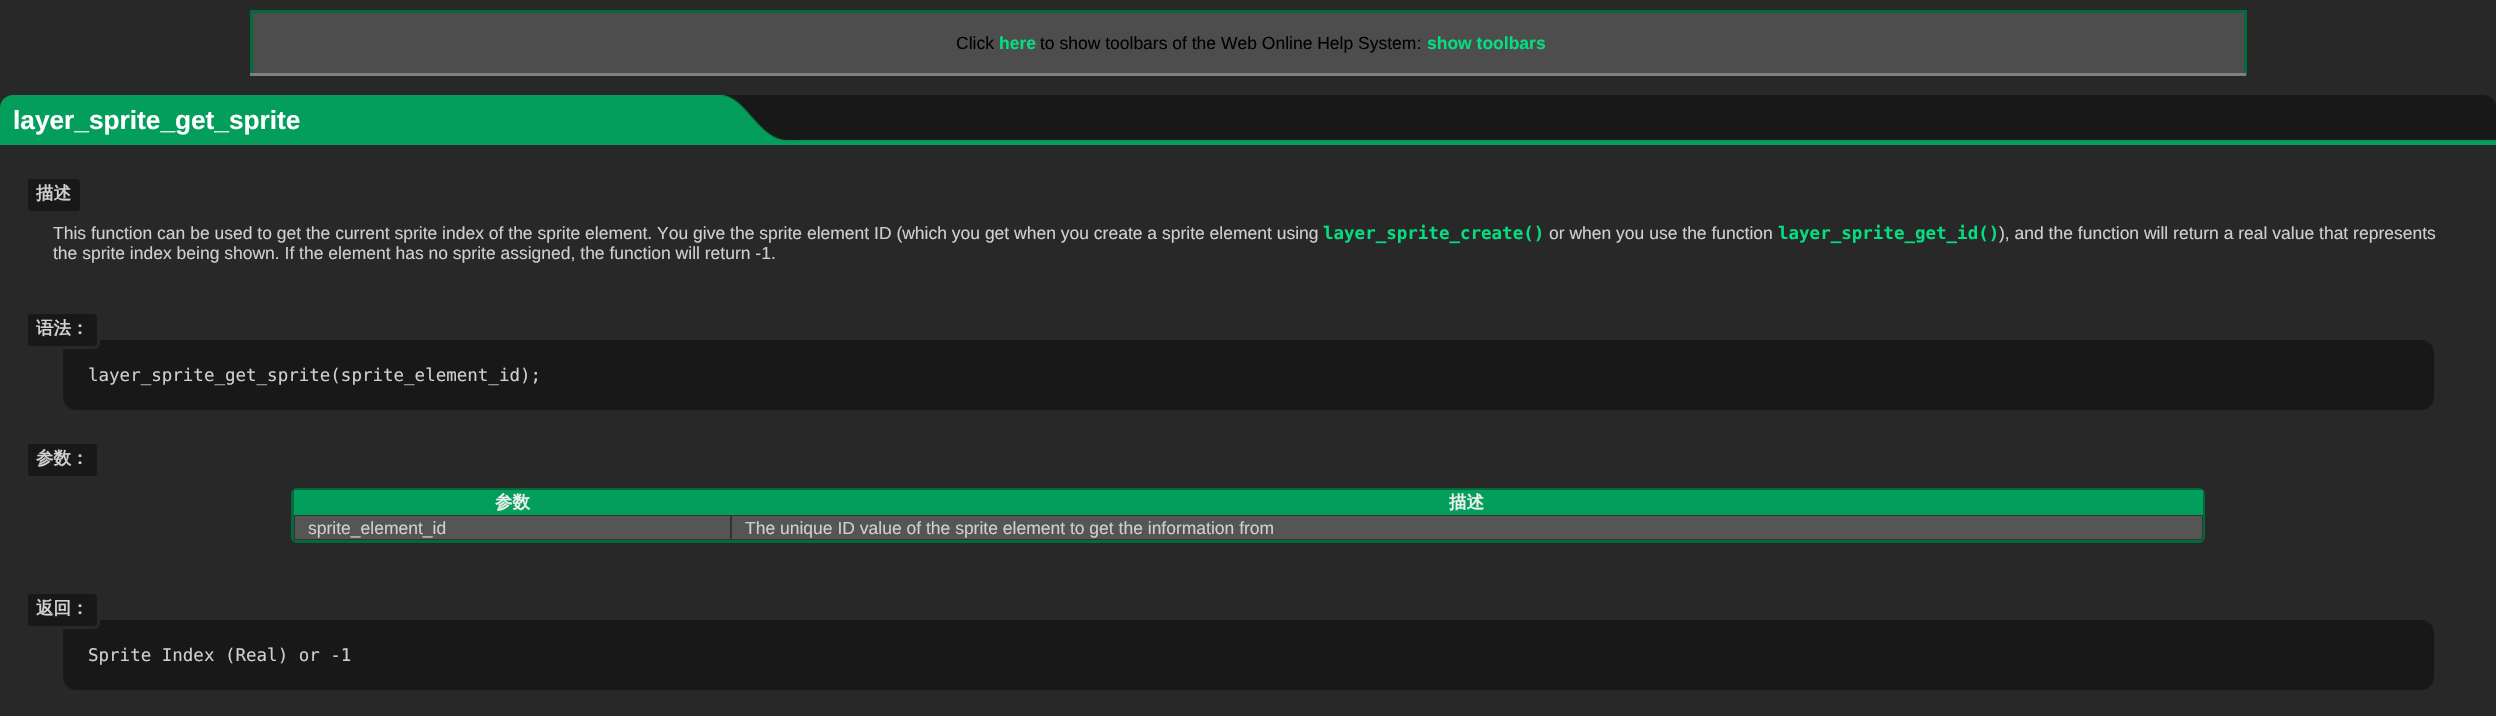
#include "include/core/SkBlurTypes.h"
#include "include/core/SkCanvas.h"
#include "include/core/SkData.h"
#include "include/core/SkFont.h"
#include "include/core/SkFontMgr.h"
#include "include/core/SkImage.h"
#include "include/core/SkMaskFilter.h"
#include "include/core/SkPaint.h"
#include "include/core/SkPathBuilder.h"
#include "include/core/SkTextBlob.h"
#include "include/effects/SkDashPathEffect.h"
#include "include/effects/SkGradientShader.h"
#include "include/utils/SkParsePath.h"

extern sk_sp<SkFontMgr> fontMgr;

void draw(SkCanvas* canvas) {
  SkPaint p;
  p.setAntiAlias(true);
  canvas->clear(SkColorSetRGB(40, 40, 40));
  p.setColor(SkColorSetRGB(2, 107, 62));
  canvas->drawRect(SkRect::MakeLTRB(250, 10, 2246, 13), p);
  canvas->drawRect(SkRect::MakeLTRB(2244, 10, 2247, 75), p);
  canvas->drawRect(SkRect::MakeLTRB(250, 10, 253, 75), p);
  p.setColor(SkColorSetRGB(77, 77, 77));
  canvas->drawRect(SkRect::MakeLTRB(253, 13, 2244, 73), p);
  p.setColor(SkColorSetRGB(128, 128, 128));
  canvas->drawRect(SkRect::MakeLTRB(250, 73, 2246, 76), p);
  canvas->drawImageRect(SkImages::DeferredFromEncodedData(SkData::MakeFromFileName("images/1.png")), SkRect::MakeLTRB(0, 95, 2496, 145), SkSamplingOptions());
  p.setColor(SkColorSetRGB(24, 24, 24));
  canvas->drawRoundRect(SkRect::MakeLTRB(26.5f, 177.5f, 81.5f, 212.5f), 4.5f, 4.5f, p);
  p.setStyle(SkPaint::kStroke_Style);
  p.setStrokeWidth(3);
  p.setColor(SkColorSetRGB(40, 40, 40));
  canvas->drawRoundRect(SkRect::MakeLTRB(26.5f, 177.5f, 81.5f, 212.5f), 4.5f, 4.5f, p);
  p.setStyle(SkPaint::kFill_Style);
  p.setColor(SkColorSetRGB(24, 24, 24));
  canvas->drawRoundRect(SkRect::MakeLTRB(63, 340, 2434, 410), 13, 13, p);
  canvas->drawRoundRect(SkRect::MakeLTRB(26.5f, 312.5f, 98.5f, 347.5f), 4.5f, 4.5f, p);
  p.setStyle(SkPaint::kStroke_Style);
  p.setColor(SkColorSetRGB(40, 40, 40));
  canvas->drawRoundRect(SkRect::MakeLTRB(26.5f, 312.5f, 98.5f, 347.5f), 4.5f, 4.5f, p);
  p.setStyle(SkPaint::kFill_Style);
  p.setColor(SkColorSetRGB(24, 24, 24));
  canvas->drawRoundRect(SkRect::MakeLTRB(26.5f, 442.5f, 98.5f, 477.5f), 4.5f, 4.5f, p);
  p.setStyle(SkPaint::kStroke_Style);
  p.setColor(SkColorSetRGB(40, 40, 40));
  canvas->drawRoundRect(SkRect::MakeLTRB(26.5f, 442.5f, 98.5f, 477.5f), 4.5f, 4.5f, p);
  p.setColor(SkColorSetRGB(2, 107, 62));
  canvas->drawRoundRect(SkRect::MakeLTRB(292.5f, 489.5f, 2203.5f, 541.5f), 4.5f, 4.5f, p);
  p.setStyle(SkPaint::kFill_Style);
  p.setColor(SkColorSetRGB(3, 158, 92));
  canvas->drawRect(SkRect::MakeLTRB(294, 490, 2203, 515), p);
  p.setColor(SkColorSetRGB(85, 85, 85));
  canvas->drawRect(SkRect::MakeLTRB(295, 516, 2202, 539), p);
  p.setStyle(SkPaint::kStroke_Style);
  p.setStrokeWidth(1);
  p.setColor(SkColorSetRGB(51, 51, 51));
  canvas->drawRect(SkRect::MakeLTRB(294.5f, 515.5f, 730.5f, 539.5f), p);
  canvas->drawRect(SkRect::MakeLTRB(731.5f, 515.5f, 2202.5f, 539.5f), p);
  p.setStyle(SkPaint::kFill_Style);
  p.setColor(SkColorSetRGB(24, 24, 24));
  canvas->drawRoundRect(SkRect::MakeLTRB(63, 620, 2434, 690), 13, 13, p);
  canvas->drawRoundRect(SkRect::MakeLTRB(26.5f, 592.5f, 98.5f, 627.5f), 4.5f, 4.5f, p);
  p.setStyle(SkPaint::kStroke_Style);
  p.setStrokeWidth(3);
  p.setColor(SkColorSetRGB(40, 40, 40));
  canvas->drawRoundRect(SkRect::MakeLTRB(26.5f, 592.5f, 98.5f, 627.5f), 4.5f, 4.5f, p);
  SkFont font1(fontMgr->matchFamilyStyle("Liberation Sans", SkFontStyle::Normal()), 17.5f);
  font1.setSubpixel(true);
  p.setStyle(SkPaint::kFill_Style);
  p.setColor(SK_ColorBLACK);
  canvas->drawString("Click", 956, 49, font1, p);
  SkFont font2(fontMgr->matchFamilyStyle("Liberation Sans", SkFontStyle::Bold()), 17.5f);
  font2.setSubpixel(true);
  p.setColor(SkColorSetRGB(4, 222, 128));
  canvas->drawString("here", 999, 49, font2, p);
  p.setColor(SK_ColorBLACK);
  canvas->drawString("to show toolbars of the Web Online Help System:", 1040, 49, font1, p);
  p.setColor(SkColorSetRGB(4, 222, 128));
  canvas->drawString("show toolbars", 1427, 49, font2, p);
  SkFont font3(fontMgr->matchFamilyStyle("Liberation Sans", SkFontStyle::Bold()), 26.25f);
  font3.setSubpixel(true);
  p.setColor(SK_ColorWHITE);
  canvas->drawString("layer_sprite_get_sprite", 13, 129, font3, p);
  SkFont font4(fontMgr->matchFamilyStyle("WenQuanYi Zen Hei", SkFontStyle::Bold()), 17.5f);
  font4.setSubpixel(true);
  p.setColor(SkColorSetRGB(207, 207, 207));
  canvas->drawString("描述", 36, 199, font4, p);
  canvas->drawString("This function can be used to get the current sprite index of the sprite element. You give the sprite element ID (which you get when you create a sprite element using", 53, 239, font1, p);
  SkFont font5(fontMgr->matchFamilyStyle("DejaVu Sans Mono", SkFontStyle::Bold()), 17.5f);
  font5.setSubpixel(true);
  p.setColor(SkColorSetRGB(4, 222, 128));
  canvas->drawString("layer_sprite_create()", 1323, 239, font5, p);
  p.setColor(SkColorSetRGB(207, 207, 207));
  canvas->drawString("or when you use the function", 1549, 239, font1, p);
  p.setColor(SkColorSetRGB(4, 222, 128));
  canvas->drawString("layer_sprite_get_id()", 1778, 239, font5, p);
  p.setColor(SkColorSetRGB(207, 207, 207));
  canvas->drawString("), and the function will return a real value that represents", 1999, 239, font1, p);
  canvas->drawString("the sprite index being shown. If the element has no sprite assigned, the function will return -1.", 53, 259, font1, p);
  canvas->drawString("语法：", 36, 334, font4, p);
  SkFont font6(fontMgr->matchFamilyStyle("DejaVu Sans Mono", SkFontStyle::Normal()), 17.5f);
  font6.setSubpixel(true);
  canvas->drawString("layer_sprite_get_sprite(sprite_element_id);", 88, 381, font6, p);
  canvas->drawString("参数：", 36, 464, font4, p);
  p.setColor(SkColorSetRGB(239, 239, 239));
  canvas->drawString("参数", 495, 508, font4, p);
  canvas->drawString("描述", 1449, 508, font4, p);
  p.setColor(SkColorSetRGB(207, 207, 207));
  canvas->drawString("sprite_element_id", 308, 534, font1, p);
  canvas->drawString("The unique ID value of the sprite element to get the information from", 745, 534, font1, p);
  canvas->drawString("返回：", 36, 614, font4, p);
  canvas->drawString("Sprite Index (Real) or -1", 88, 661, font6, p);
}
